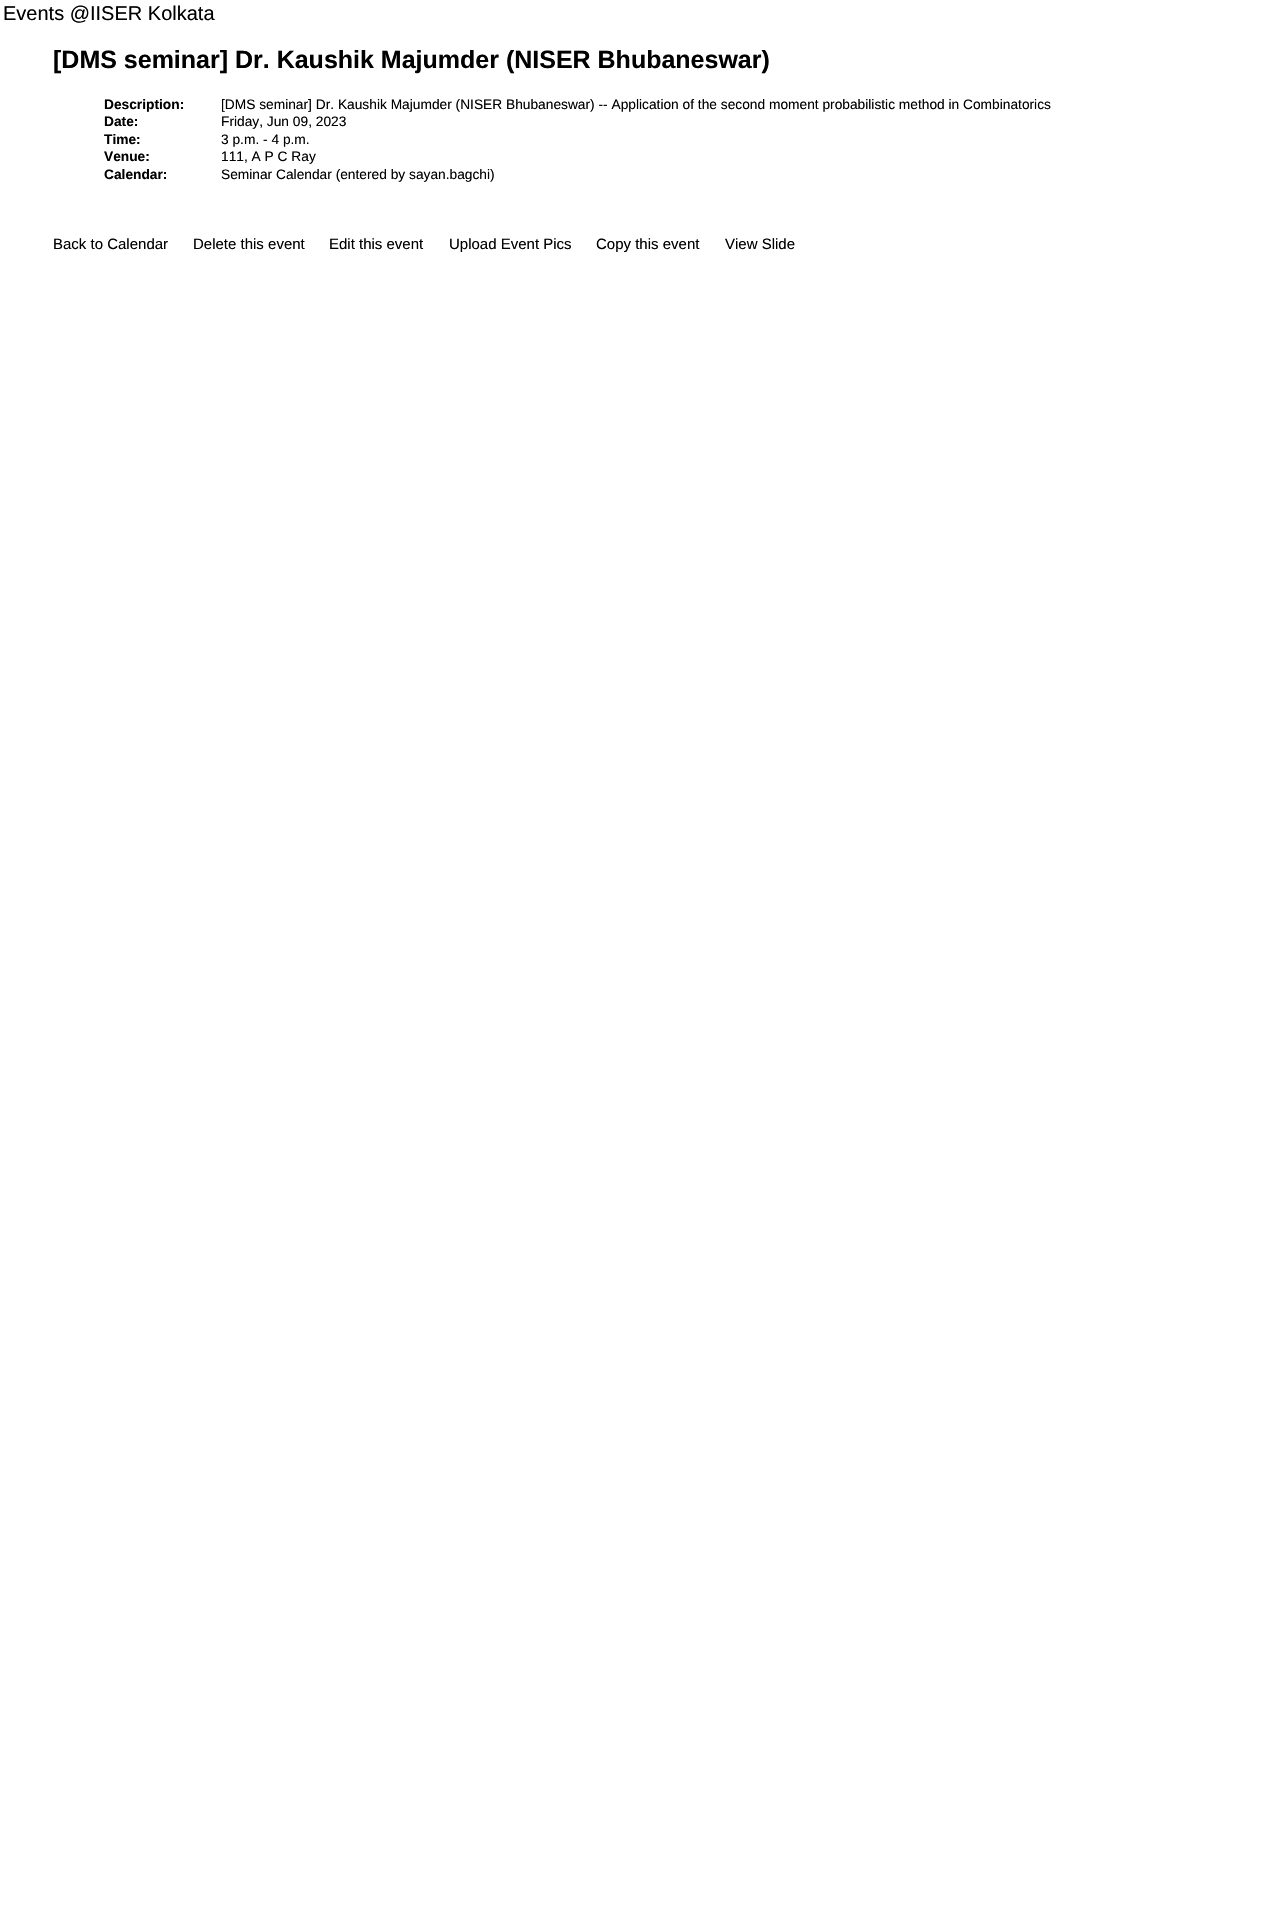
#include "include/core/SkBlurTypes.h"
#include "include/core/SkCanvas.h"
#include "include/core/SkData.h"
#include "include/core/SkFont.h"
#include "include/core/SkFontMgr.h"
#include "include/core/SkImage.h"
#include "include/core/SkMaskFilter.h"
#include "include/core/SkPaint.h"
#include "include/core/SkPathBuilder.h"
#include "include/core/SkTextBlob.h"
#include "include/effects/SkDashPathEffect.h"
#include "include/effects/SkGradientShader.h"
#include "include/utils/SkParsePath.h"

extern sk_sp<SkFontMgr> fontMgr;

void draw(SkCanvas* canvas) {
  SkPaint p;
  p.setAntiAlias(true);
  canvas->clear(SK_ColorWHITE);
  SkFont font1(fontMgr->matchFamilyStyle("Liberation Sans", SkFontStyle::Normal()), 20);
  font1.setSubpixel(true);
  p.setColor(SK_ColorBLACK);
  canvas->drawString("Events @IISER Kolkata", 3, 20, font1, p);
  SkFont font2(fontMgr->matchFamilyStyle("Liberation Sans", SkFontStyle::Bold()), 25);
  font2.setSubpixel(true);
  canvas->drawString("[DMS seminar] Dr. Kaushik Majumder (NISER Bhubaneswar)", 53, 68, font2, p);
  SkFont font3(fontMgr->matchFamilyStyle("Liberation Sans", SkFontStyle::Bold()), 13.75f);
  font3.setSubpixel(true);
  canvas->drawString("Description:", 104, 109, font3, p);
  SkFont font4(fontMgr->matchFamilyStyle("Liberation Sans", SkFontStyle::Normal()), 13.75f);
  font4.setSubpixel(true);
  canvas->drawString("[DMS seminar] Dr. Kaushik Majumder (NISER Bhubaneswar) -- Application of the second moment probabilistic method in Combinatorics", 221, 109, font4, p);
  canvas->drawString("Date:", 104, 126, font3, p);
  canvas->drawString("Friday, Jun 09, 2023", 221, 126, font4, p);
  canvas->drawString("Time:", 104, 144, font3, p);
  canvas->drawString("3 p.m. - 4 p.m.", 221, 144, font4, p);
  canvas->drawString("Venue:", 104, 161, font3, p);
  canvas->drawString("111, A P C Ray", 221, 161, font4, p);
  canvas->drawString("Calendar:", 104, 179, font3, p);
  canvas->drawString("Seminar Calendar (entered by sayan.bagchi)", 221, 179, font4, p);
  SkFont font5(fontMgr->matchFamilyStyle("Liberation Sans", SkFontStyle::Normal()), 15);
  font5.setSubpixel(true);
  canvas->drawString("Back to Calendar", 53, 249, font5, p);
  canvas->drawString("Delete this event", 193, 249, font5, p);
  canvas->drawString("Edit this event", 329, 249, font5, p);
  canvas->drawString("Upload Event Pics", 449, 249, font5, p);
  canvas->drawString("Copy this event", 596, 249, font5, p);
  canvas->drawString("View Slide", 725, 249, font5, p);
}
